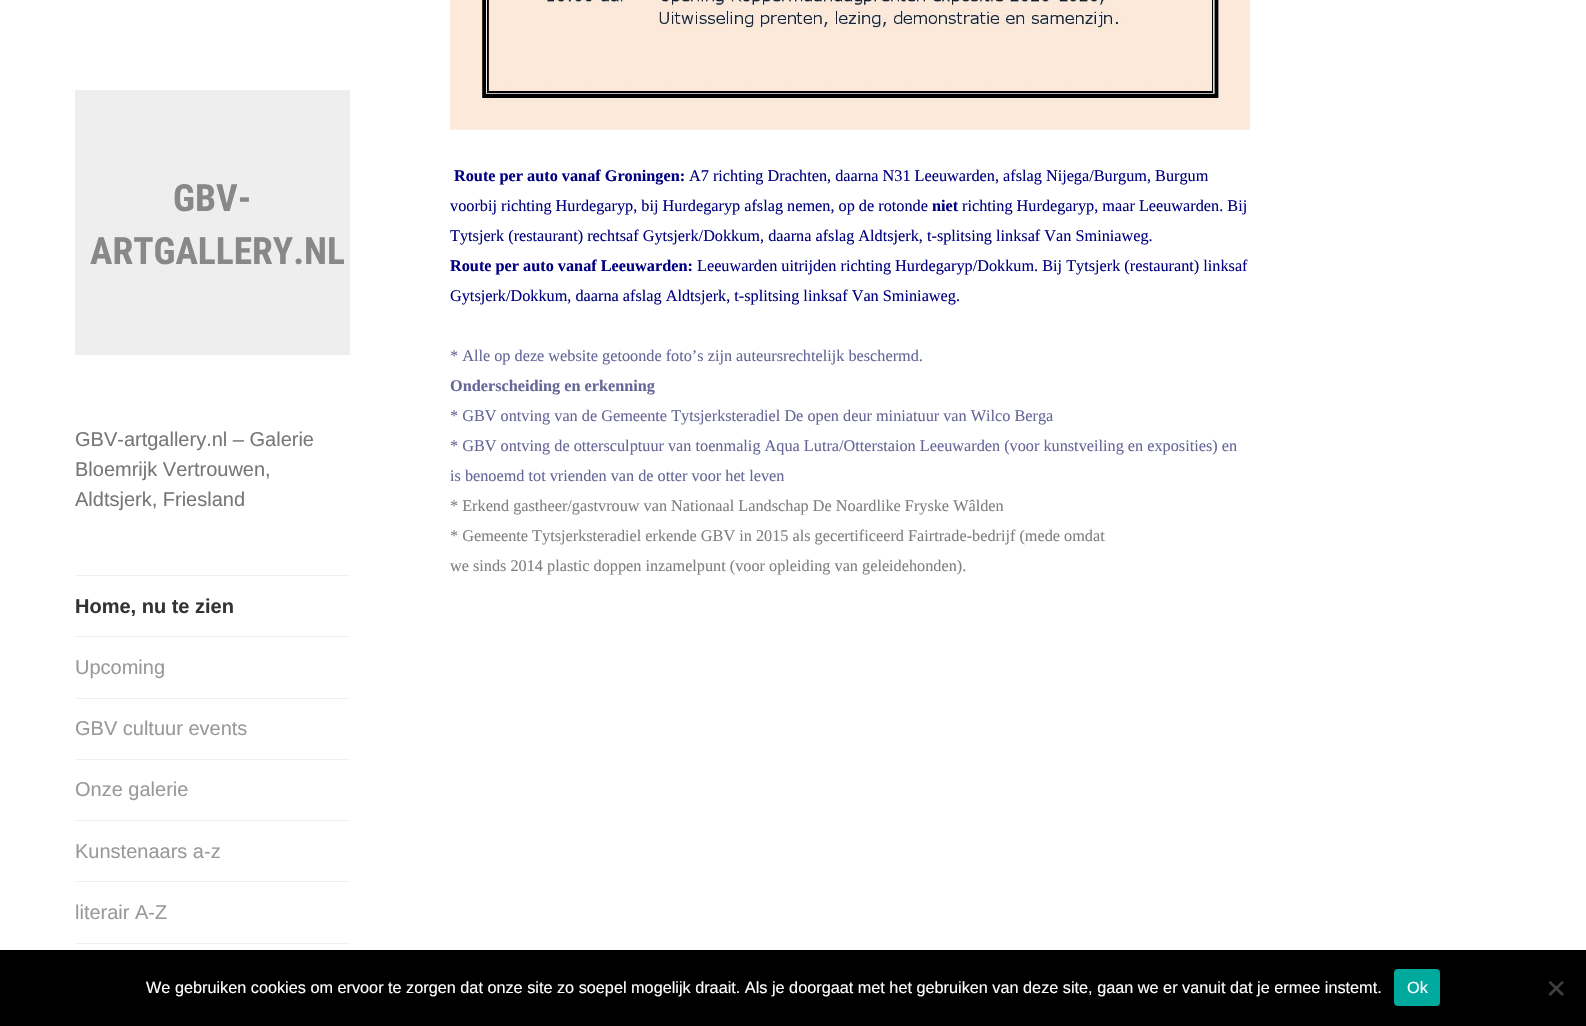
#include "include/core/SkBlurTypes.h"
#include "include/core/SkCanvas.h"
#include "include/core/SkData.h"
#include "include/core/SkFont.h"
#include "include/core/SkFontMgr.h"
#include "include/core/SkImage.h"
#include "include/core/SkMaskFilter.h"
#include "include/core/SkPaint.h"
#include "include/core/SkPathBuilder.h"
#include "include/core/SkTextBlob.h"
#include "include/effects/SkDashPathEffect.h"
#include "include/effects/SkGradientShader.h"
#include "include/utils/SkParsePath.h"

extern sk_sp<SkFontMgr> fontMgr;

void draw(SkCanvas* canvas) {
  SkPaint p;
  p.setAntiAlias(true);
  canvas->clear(SK_ColorWHITE);
  p.setColor(SkColorSetRGB(238, 238, 238));
  canvas->drawRect(SkRect::MakeLTRB(75, 90, 350, 355), p);
  p.setColor(SkColorSetRGB(240, 240, 240));
  canvas->drawRect(SkRect::MakeLTRB(75, 575, 350, 576), p);
  canvas->drawRect(SkRect::MakeLTRB(75, 636, 350, 637), p);
  canvas->drawRect(SkRect::MakeLTRB(75, 698, 350, 699), p);
  canvas->drawRect(SkRect::MakeLTRB(75, 759, 350, 760), p);
  canvas->drawRect(SkRect::MakeLTRB(75, 820, 350, 821), p);
  canvas->drawRect(SkRect::MakeLTRB(75, 881, 350, 882), p);
  canvas->drawRect(SkRect::MakeLTRB(75, 943, 350, 944), p);
  canvas->drawImageRect(SkImages::DeferredFromEncodedData(SkData::MakeFromFileName("images/1.png")), SkRect::MakeLTRB(450, 0, 1250, 130), SkSamplingOptions());
  p.setColor(SK_ColorBLACK);
  canvas->drawRect(SkRect::MakeLTRB(0, 950, 1586, 1026), p);
  p.setColor(SkColorSetRGB(0, 169, 157));
  canvas->drawRoundRect(SkRect::MakeLTRB(1394, 969, 1440, 1006), 4, 4, p);
  p.setColor(SkColorSetRGB(64, 64, 64));
  canvas->drawPath(SkPathBuilder().moveTo(1562, 981).lineTo(1564, 982.5f).lineTo(1550.5f, 996).lineTo(1548.5f, 994).close().detach(), p);
  canvas->drawPath(SkPathBuilder().moveTo(1548.5f, 982.5f).lineTo(1550.5f, 981).lineTo(1564, 994).lineTo(1562, 996).close().detach(), p);
  SkFont font1(fontMgr->matchFamilyStyle("Roboto Condensed", SkFontStyle::Bold()), 37.5f);
  font1.setSubpixel(true);
  p.setColor(SkColorSetRGB(136, 136, 136));
  canvas->drawString("GBV-", 173, 211, font1, p);
  canvas->drawString("ARTGALLERY.NL", 90, 264, font1, p);
  SkFont font2(fontMgr->matchFamilyStyle("Arimo", SkFontStyle::Normal()), 20);
  font2.setSubpixel(true);
  p.setColor(SkColorSetRGB(119, 119, 119));
  canvas->drawString("GBV-artgallery.nl – Galerie", 75, 446, font2, p);
  canvas->drawString("Bloemrijk Vertrouwen,", 75, 476, font2, p);
  canvas->drawString("Aldtsjerk, Friesland", 75, 506, font2, p);
  SkFont font3(fontMgr->matchFamilyStyle("Arimo", SkFontStyle::Bold()), 20);
  font3.setSubpixel(true);
  p.setColor(SkColorSetRGB(51, 51, 51));
  canvas->drawString("Home, nu te zien", 75, 613, font3, p);
  p.setColor(SkColorSetRGB(153, 153, 153));
  canvas->drawString("Upcoming", 75, 674, font2, p);
  canvas->drawString("GBV cultuur events", 75, 735, font2, p);
  canvas->drawString("Onze galerie", 75, 796, font2, p);
  canvas->drawString("Kunstenaars a-z", 75, 858, font2, p);
  canvas->drawString("literair A-Z", 75, 919, font2, p);
  SkFont font4(fontMgr->matchFamilyStyle("Liberation Serif", SkFontStyle::Bold()), 16.25f);
  font4.setSubpixel(true);
  p.setColor(SkColorSetRGB(0, 0, 128));
  canvas->drawString("Route per auto vanaf Groningen:", 454, 181, font4, p);
  SkFont font5(fontMgr->matchFamilyStyle("Liberation Serif", SkFontStyle::Normal()), 16.25f);
  font5.setSubpixel(true);
  canvas->drawString("A7 richting Drachten, daarna N31 Leeuwarden, afslag Nijega/Burgum, Burgum", 689, 181, font5, p);
  canvas->drawString("voorbij richting Hurdegaryp, bij Hurdegaryp afslag nemen, op de rotonde", 450, 211, font5, p);
  canvas->drawString("niet", 932, 211, font4, p);
  canvas->drawString("richting Hurdegaryp, maar Leeuwarden. Bij", 962, 211, font5, p);
  canvas->drawString("Tytsjerk (restaurant) rechtsaf Gytsjerk/Dokkum, daarna afslag Aldtsjerk, t-splitsing linksaf Van Sminiaweg.", 450, 241, font5, p);
  canvas->drawString("Route per auto vanaf Leeuwarden:", 450, 271, font4, p);
  canvas->drawString("Leeuwarden uitrijden richting Hurdegaryp/Dokkum. Bij Tytsjerk (restaurant) linksaf", 697, 271, font5, p);
  canvas->drawString("Gytsjerk/Dokkum, daarna afslag Aldtsjerk, t-splitsing linksaf Van Sminiaweg.", 450, 301, font5, p);
  p.setColor(SkColorSetRGB(102, 102, 153));
  canvas->drawString("* Alle op deze website getoonde foto’s zijn auteursrechtelijk beschermd.", 450, 361, font5, p);
  canvas->drawString("Onderscheiding en erkenning", 450, 391, font4, p);
  canvas->drawString("* GBV ontving van de Gemeente Tytsjerksteradiel De open deur miniatuur van Wilco Berga", 450, 421, font5, p);
  canvas->drawString("* GBV ontving de ottersculptuur van toenmalig Aqua Lutra/Otterstaion Leeuwarden (voor kunstveiling en exposities) en", 450, 451, font5, p);
  canvas->drawString("is benoemd tot vrienden van de otter voor het leven", 450, 481, font5, p);
  p.setColor(SkColorSetRGB(128, 128, 128));
  canvas->drawString("* Erkend gastheer/gastvrouw van Nationaal Landschap De Noardlike Fryske Wâlden", 450, 511, font5, p);
  canvas->drawString("* Gemeente Tytsjerksteradiel erkende GBV in 2015 als gecertificeerd Fairtrade-bedrijf (mede omdat", 450, 541, font5, p);
  canvas->drawString("we sinds 2014 plastic doppen inzamelpunt (voor opleiding van geleidehonden).", 450, 571, font5, p);
  SkFont font6(fontMgr->matchFamilyStyle("Liberation Sans", SkFontStyle::Normal()), 16.25f);
  font6.setSubpixel(true);
  p.setColor(SK_ColorWHITE);
  canvas->drawString("We gebruiken cookies om ervoor te zorgen dat onze site zo soepel mogelijk draait. Als je doorgaat met het gebruiken van deze site, gaan we er vanuit dat je ermee instemt.", 146, 993, font6, p);
  canvas->drawString("Ok", 1407, 993, font6, p);
}
